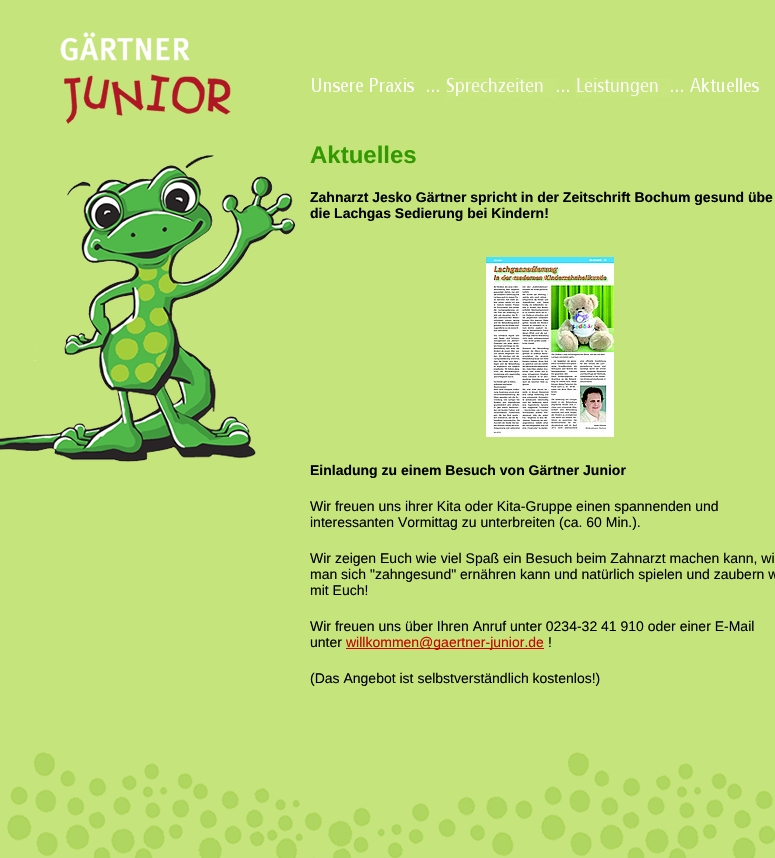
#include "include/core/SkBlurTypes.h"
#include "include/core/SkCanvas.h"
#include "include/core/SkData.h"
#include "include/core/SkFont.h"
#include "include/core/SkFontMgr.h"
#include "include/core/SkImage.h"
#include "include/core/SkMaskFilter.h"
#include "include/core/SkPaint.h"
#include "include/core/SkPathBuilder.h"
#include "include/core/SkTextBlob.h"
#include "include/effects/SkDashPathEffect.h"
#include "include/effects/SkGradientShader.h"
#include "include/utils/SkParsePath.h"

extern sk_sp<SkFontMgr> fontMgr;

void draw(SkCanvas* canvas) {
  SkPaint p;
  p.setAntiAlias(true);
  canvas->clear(SkColorSetRGB(198, 228, 124));
  canvas->drawImageRect(SkImages::DeferredFromEncodedData(SkData::MakeFromFileName("images/1.png")), SkRect::MakeLTRB(0, 32, 296, 462), SkSamplingOptions());
  canvas->drawImageRect(SkImages::DeferredFromEncodedData(SkData::MakeFromFileName("images/2.png")), SkRect::MakeLTRB(312, 78, 414, 92), SkSamplingOptions());
  canvas->drawImageRect(SkImages::DeferredFromEncodedData(SkData::MakeFromFileName("images/3.png")), SkRect::MakeLTRB(427, 89, 439, 92), SkSamplingOptions());
  canvas->drawImageRect(SkImages::DeferredFromEncodedData(SkData::MakeFromFileName("images/4.png")), SkRect::MakeLTRB(446, 78, 557, 98), SkSamplingOptions());
  canvas->drawImageRect(SkImages::DeferredFromEncodedData(SkData::MakeFromFileName("images/3.png")), SkRect::MakeLTRB(557, 89, 569, 92), SkSamplingOptions());
  canvas->drawImageRect(SkImages::DeferredFromEncodedData(SkData::MakeFromFileName("images/5.png")), SkRect::MakeLTRB(575, 78, 671, 98), SkSamplingOptions());
  canvas->drawImageRect(SkImages::DeferredFromEncodedData(SkData::MakeFromFileName("images/3.png")), SkRect::MakeLTRB(671, 89, 683, 92), SkSamplingOptions());
  canvas->drawImageRect(SkImages::DeferredFromEncodedData(SkData::MakeFromFileName("images/6.png")), SkRect::MakeLTRB(690, 78, 759, 92), SkSamplingOptions());
  canvas->drawImageRect(SkImages::DeferredFromEncodedData(SkData::MakeFromFileName("images/7.png")), SkRect::MakeLTRB(486, 257, 614, 437), SkSamplingOptions());
  p.setColor(SkColorSetRGB(204, 0, 0));
  canvas->drawRect(SkRect::MakeLTRB(346, 648, 544, 649), p);
  canvas->drawImageRect(SkImages::DeferredFromEncodedData(SkData::MakeFromFileName("images/8.png")), SkRect::MakeLTRB(7, 752, 775, 858), SkSamplingOptions());
  SkFont font1(fontMgr->matchFamilyStyle("Liberation Sans", SkFontStyle::Bold()), 24);
  font1.setSubpixel(true);
  p.setColor(SkColorSetRGB(51, 153, 0));
  canvas->drawString("Aktuelles", 310, 163, font1, p);
  SkFont font2(fontMgr->matchFamilyStyle("Liberation Sans", SkFontStyle::Bold()), 14);
  font2.setSubpixel(true);
  p.setColor(SK_ColorBLACK);
  canvas->drawString("Zahnarzt Jesko Gärtner spricht in der Zeitschrift Bochum gesund übe", 310, 202, font2, p);
  canvas->drawString("die Lachgas Sedierung bei Kindern!", 310, 218, font2, p);
  canvas->drawString("Einladung zu einem Besuch von Gärtner Junior", 310, 475, font2, p);
  SkFont font3(fontMgr->matchFamilyStyle("Liberation Sans", SkFontStyle::Normal()), 14);
  font3.setSubpixel(true);
  canvas->drawString("Wir freuen uns ihrer Kita oder Kita-Gruppe einen spannenden und", 310, 511, font3, p);
  canvas->drawString("interessanten Vormittag zu unterbreiten (ca. 60 Min.).", 310, 527, font3, p);
  canvas->drawString("Wir zeigen Euch wie viel Spaß ein Besuch beim Zahnarzt machen kann, wi", 310, 563, font3, p);
  canvas->drawString("man sich \"zahngesund\" ernähren kann und natürlich spielen und zaubern w", 310, 579, font3, p);
  canvas->drawString("mit Euch!", 310, 595, font3, p);
  canvas->drawString("Wir freuen uns über Ihren Anruf unter 0234-32 41 910 oder einer E-Mail", 310, 631, font3, p);
  canvas->drawString("unter", 310, 647, font3, p);
  p.setColor(SkColorSetRGB(204, 0, 0));
  canvas->drawString("willkommen@gaertner-junior.de", 346, 647, font3, p);
  p.setColor(SK_ColorBLACK);
  canvas->drawString("!", 548, 647, font3, p);
  canvas->drawString("(Das Angebot ist selbstverständlich kostenlos!)", 310, 683, font3, p);
}
